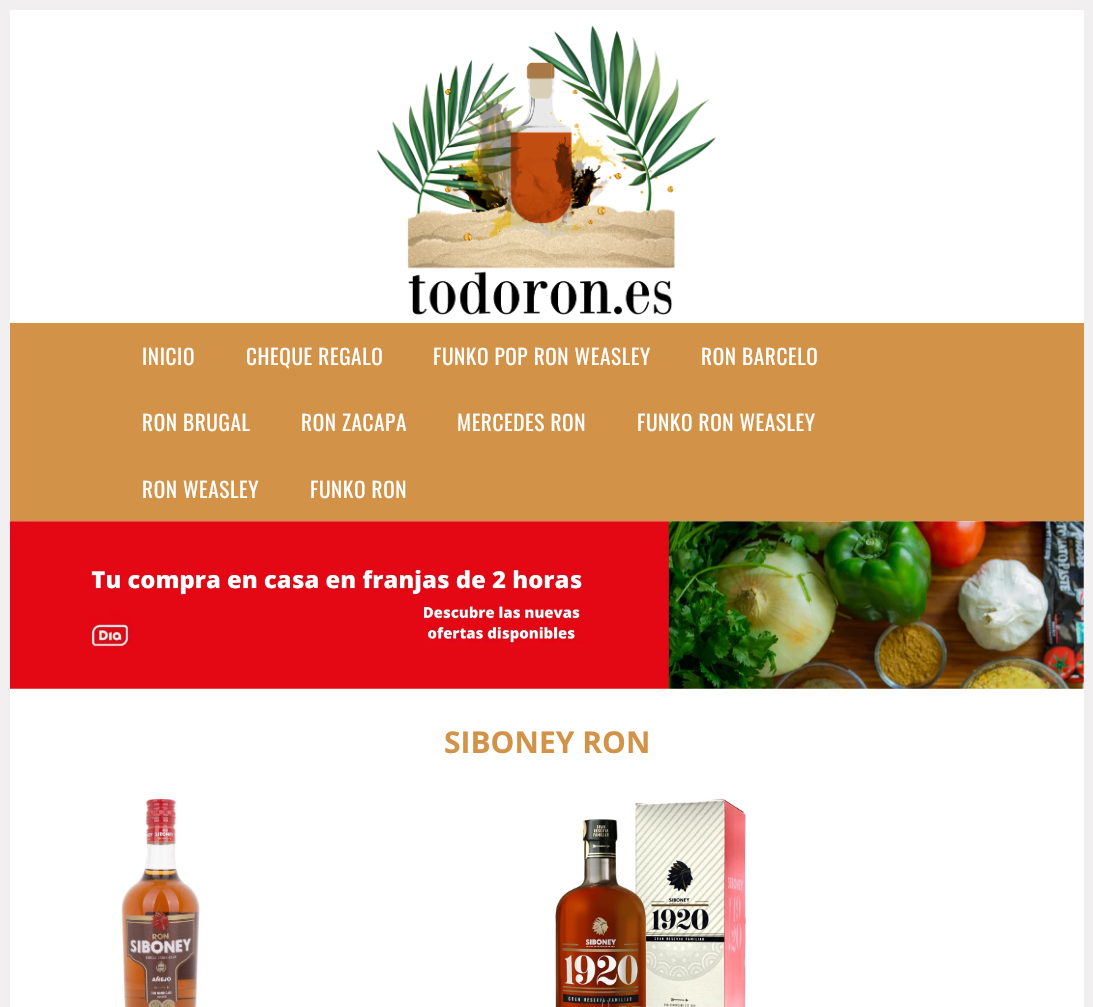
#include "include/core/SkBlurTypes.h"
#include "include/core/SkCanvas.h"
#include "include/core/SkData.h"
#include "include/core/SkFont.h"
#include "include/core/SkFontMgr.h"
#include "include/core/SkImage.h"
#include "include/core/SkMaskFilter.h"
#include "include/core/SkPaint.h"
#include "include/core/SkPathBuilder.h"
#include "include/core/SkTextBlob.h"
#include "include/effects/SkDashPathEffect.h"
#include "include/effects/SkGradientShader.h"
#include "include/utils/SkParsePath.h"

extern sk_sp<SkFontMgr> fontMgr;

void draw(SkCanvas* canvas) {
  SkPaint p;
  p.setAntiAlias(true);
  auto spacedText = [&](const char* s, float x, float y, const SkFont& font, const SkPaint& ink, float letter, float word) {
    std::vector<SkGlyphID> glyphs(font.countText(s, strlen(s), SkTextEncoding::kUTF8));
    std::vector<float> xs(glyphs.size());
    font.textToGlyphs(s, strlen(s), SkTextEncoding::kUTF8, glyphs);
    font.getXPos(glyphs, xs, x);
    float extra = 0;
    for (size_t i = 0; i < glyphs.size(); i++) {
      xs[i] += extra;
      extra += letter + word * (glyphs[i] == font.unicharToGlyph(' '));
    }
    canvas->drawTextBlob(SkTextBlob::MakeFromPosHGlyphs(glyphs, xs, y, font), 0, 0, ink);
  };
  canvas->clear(SkColorSetRGB(241, 239, 239));
  p.setColor(SK_ColorWHITE);
  canvas->drawRect(SkRect::MakeLTRB(10, 10, 1084, 1007), p);
  canvas->drawImageRect(SkImages::DeferredFromEncodedData(SkData::MakeFromFileName("images/1.png")), SkRect::MakeLTRB(377, 25, 716, 315), SkSamplingOptions());
  p.setColor(SkColorSetRGB(210, 147, 72));
  canvas->drawRect(SkRect::MakeLTRB(10, 323, 1084, 521), p);
  canvas->drawImageRect(SkImages::DeferredFromEncodedData(SkData::MakeFromFileName("images/2.png")), SkRect::MakeLTRB(10, 521, 1084, 689), SkSamplingOptions());
  canvas->drawImageRect(SkImages::DeferredFromEncodedData(SkData::MakeFromFileName("images/3.png")), SkRect::MakeLTRB(121, 798, 200, 1007), SkSamplingOptions());
  canvas->drawImageRect(SkImages::DeferredFromEncodedData(SkData::MakeFromFileName("images/4.png")), SkRect::MakeLTRB(555, 798, 746, 1007), SkSamplingOptions());
  SkFont font1(fontMgr->matchFamilyStyle("Oswald", SkFontStyle::Normal()), 21.25f);
  font1.setSubpixel(true);
  p.setColor(SK_ColorWHITE);
  spacedText("INICIO", 142, 365, font1, p, 0.6f, 0);
  spacedText("CHEQUE REGALO", 246, 365, font1, p, 0.6f, 0);
  spacedText("FUNKO POP RON WEASLEY", 433, 365, font1, p, 0.6f, 0);
  spacedText("RON BARCELO", 701, 365, font1, p, 0.6f, 0);
  spacedText("RON BRUGAL", 142, 431, font1, p, 0.6f, 0);
  spacedText("RON ZACAPA", 301, 431, font1, p, 0.6f, 0);
  spacedText("MERCEDES RON", 457, 431, font1, p, 0.6f, 0);
  spacedText("FUNKO RON WEASLEY", 637, 431, font1, p, 0.6f, 0);
  spacedText("RON WEASLEY", 142, 498, font1, p, 0.6f, 0);
  spacedText("FUNKO RON", 310, 498, font1, p, 0.6f, 0);
  SkFont font2(fontMgr->matchFamilyStyle("Open Sans", SkFontStyle::Bold()), 30);
  font2.setSubpixel(true);
  p.setColor(SkColorSetRGB(210, 147, 72));
  canvas->drawString("SIBONEY RON", 444, 753, font2, p);
}
